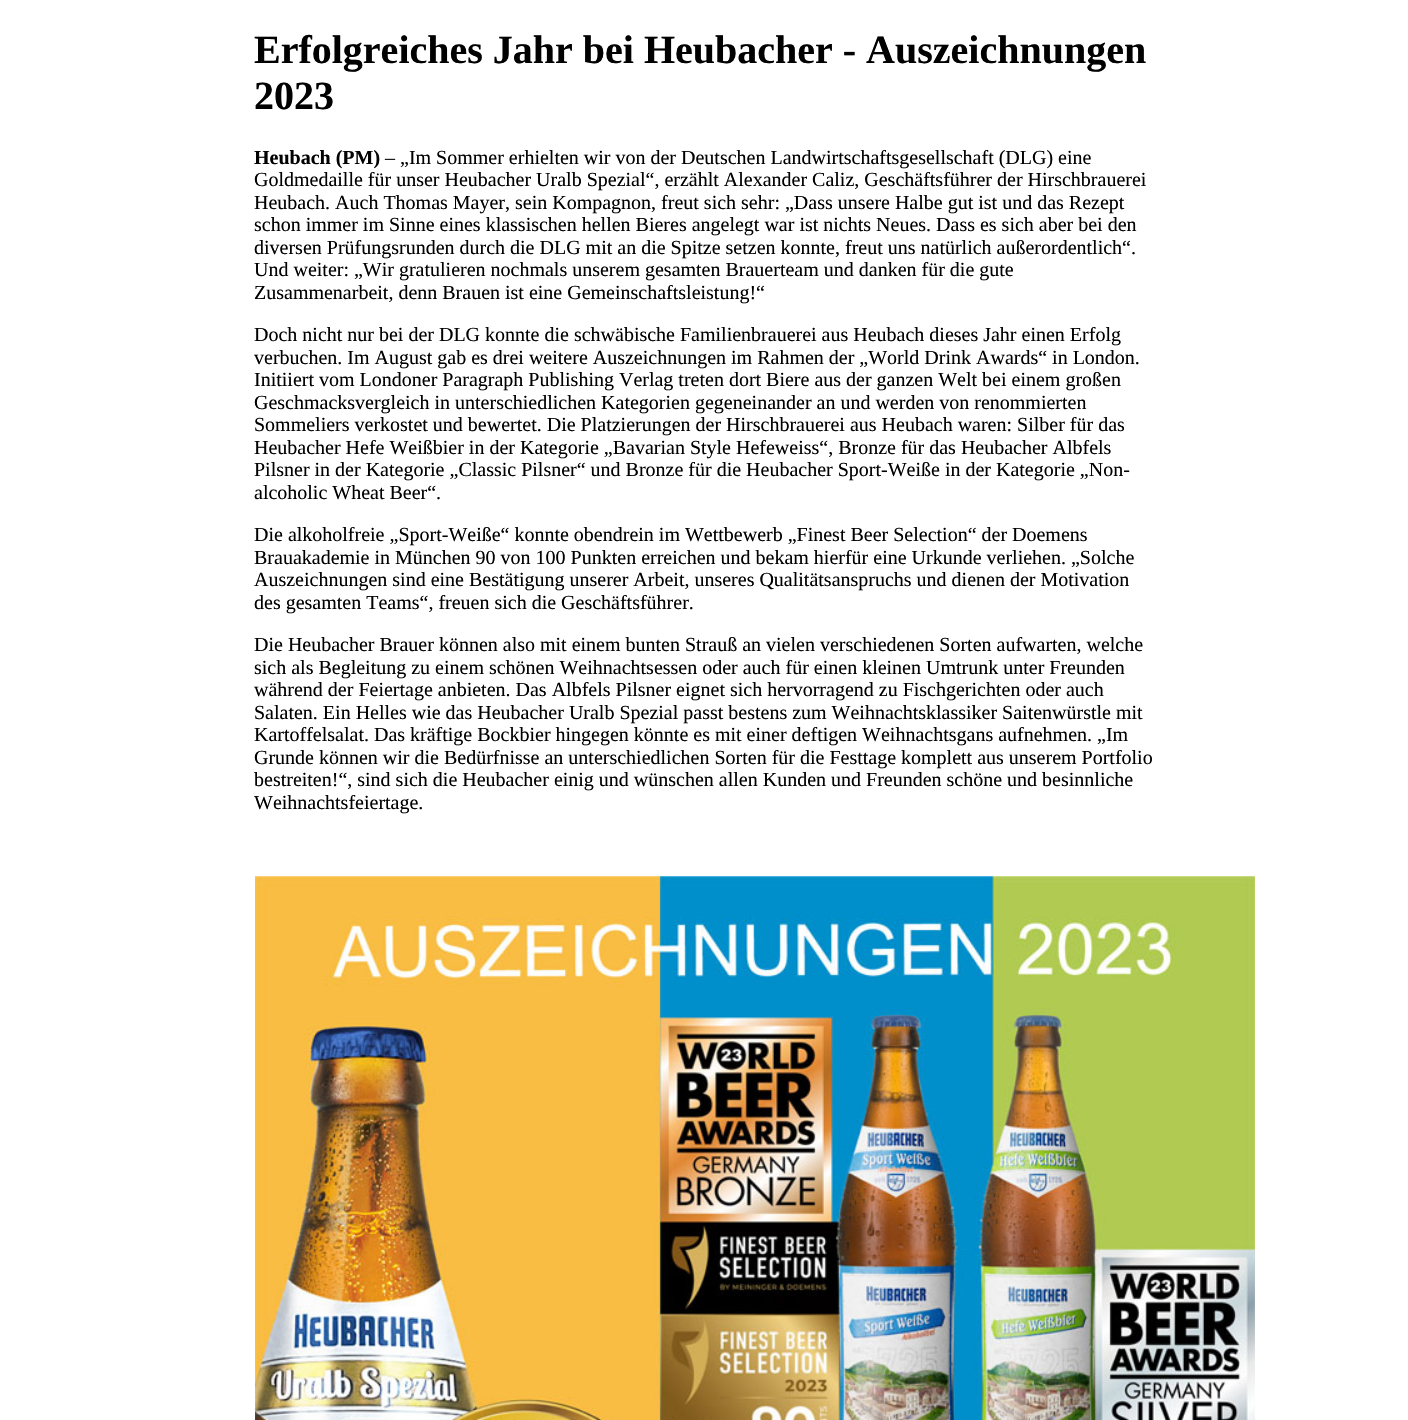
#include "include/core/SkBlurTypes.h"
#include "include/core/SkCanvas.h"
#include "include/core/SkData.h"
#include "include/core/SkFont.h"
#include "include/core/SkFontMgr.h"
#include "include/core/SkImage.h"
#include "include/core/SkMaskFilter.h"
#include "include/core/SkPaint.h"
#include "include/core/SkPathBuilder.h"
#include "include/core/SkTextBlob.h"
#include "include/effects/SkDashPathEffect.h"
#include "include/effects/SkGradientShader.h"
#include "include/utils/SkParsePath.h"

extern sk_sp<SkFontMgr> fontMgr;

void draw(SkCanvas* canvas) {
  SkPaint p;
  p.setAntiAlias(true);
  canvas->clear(SK_ColorWHITE);
  canvas->drawImageRect(SkImages::DeferredFromEncodedData(SkData::MakeFromFileName("images/1.png")), SkRect::MakeLTRB(255, 876, 1255, 1420), SkSamplingOptions());
  SkFont font1(fontMgr->matchFamilyStyle("Liberation Serif", SkFontStyle::Bold()), 40);
  font1.setSubpixel(true);
  p.setColor(SK_ColorBLACK);
  canvas->drawString("Erfolgreiches Jahr bei Heubacher - Auszeichnungen", 254, 63, font1, p);
  canvas->drawString("2023", 254, 109, font1, p);
  SkFont font2(fontMgr->matchFamilyStyle("Liberation Serif", SkFontStyle::Bold()), 20);
  font2.setSubpixel(true);
  canvas->drawString("Heubach (PM)", 254, 164, font2, p);
  SkFont font3(fontMgr->matchFamilyStyle("Liberation Serif", SkFontStyle::Normal()), 20);
  font3.setSubpixel(true);
  canvas->drawString("– „Im Sommer erhielten wir von der Deutschen Landwirtschaftsgesellschaft (DLG) eine", 385, 164, font3, p);
  canvas->drawString("Goldmedaille für unser Heubacher Uralb Spezial“, erzählt Alexander Caliz, Geschäftsführer der Hirschbrauerei", 254, 186, font3, p);
  canvas->drawString("Heubach. Auch Thomas Mayer, sein Kompagnon, freut sich sehr: „Dass unsere Halbe gut ist und das Rezept", 254, 209, font3, p);
  canvas->drawString("schon immer im Sinne eines klassischen hellen Bieres angelegt war ist nichts Neues. Dass es sich aber bei den", 254, 231, font3, p);
  canvas->drawString("diversen Prüfungsrunden durch die DLG mit an die Spitze setzen konnte, freut uns natürlich außerordentlich“.", 254, 254, font3, p);
  canvas->drawString("Und weiter: „Wir gratulieren nochmals unserem gesamten Brauerteam und danken für die gute", 254, 276, font3, p);
  canvas->drawString("Zusammenarbeit, denn Brauen ist eine Gemeinschaftsleistung!“", 254, 299, font3, p);
  canvas->drawString("Doch nicht nur bei der DLG konnte die schwäbische Familienbrauerei aus Heubach dieses Jahr einen Erfolg", 254, 341, font3, p);
  canvas->drawString("verbuchen. Im August gab es drei weitere Auszeichnungen im Rahmen der „World Drink Awards“ in London.", 254, 364, font3, p);
  canvas->drawString("Initiiert vom Londoner Paragraph Publishing Verlag treten dort Biere aus der ganzen Welt bei einem großen", 254, 386, font3, p);
  canvas->drawString("Geschmacksvergleich in unterschiedlichen Kategorien gegeneinander an und werden von renommierten", 254, 409, font3, p);
  canvas->drawString("Sommeliers verkostet und bewertet. Die Platzierungen der Hirschbrauerei aus Heubach waren: Silber für das", 254, 431, font3, p);
  canvas->drawString("Heubacher Hefe Weißbier in der Kategorie „Bavarian Style Hefeweiss“, Bronze für das Heubacher Albfels", 254, 454, font3, p);
  canvas->drawString("Pilsner in der Kategorie „Classic Pilsner“ und Bronze für die Heubacher Sport-Weiße in der Kategorie „Non-", 254, 476, font3, p);
  canvas->drawString("alcoholic Wheat Beer“.", 254, 499, font3, p);
  canvas->drawString("Die alkoholfreie „Sport-Weiße“ konnte obendrein im Wettbewerb „Finest Beer Selection“ der Doemens", 254, 541, font3, p);
  canvas->drawString("Brauakademie in München 90 von 100 Punkten erreichen und bekam hierfür eine Urkunde verliehen. „Solche", 254, 564, font3, p);
  canvas->drawString("Auszeichnungen sind eine Bestätigung unserer Arbeit, unseres Qualitätsanspruchs und dienen der Motivation", 254, 586, font3, p);
  canvas->drawString("des gesamten Teams“, freuen sich die Geschäftsführer.", 254, 609, font3, p);
  canvas->drawString("Die Heubacher Brauer können also mit einem bunten Strauß an vielen verschiedenen Sorten aufwarten, welche", 254, 651, font3, p);
  canvas->drawString("sich als Begleitung zu einem schönen Weihnachtsessen oder auch für einen kleinen Umtrunk unter Freunden", 254, 674, font3, p);
  canvas->drawString("während der Feiertage anbieten. Das Albfels Pilsner eignet sich hervorragend zu Fischgerichten oder auch", 254, 696, font3, p);
  canvas->drawString("Salaten. Ein Helles wie das Heubacher Uralb Spezial passt bestens zum Weihnachtsklassiker Saitenwürstle mit", 254, 719, font3, p);
  canvas->drawString("Kartoffelsalat. Das kräftige Bockbier hingegen könnte es mit einer deftigen Weihnachtsgans aufnehmen. „Im", 254, 741, font3, p);
  canvas->drawString("Grunde können wir die Bedürfnisse an unterschiedlichen Sorten für die Festtage komplett aus unserem Portfolio", 254, 764, font3, p);
  canvas->drawString("bestreiten!“, sind sich die Heubacher einig und wünschen allen Kunden und Freunden schöne und besinnliche", 254, 786, font3, p);
  canvas->drawString("Weihnachtsfeiertage.", 254, 809, font3, p);
}
